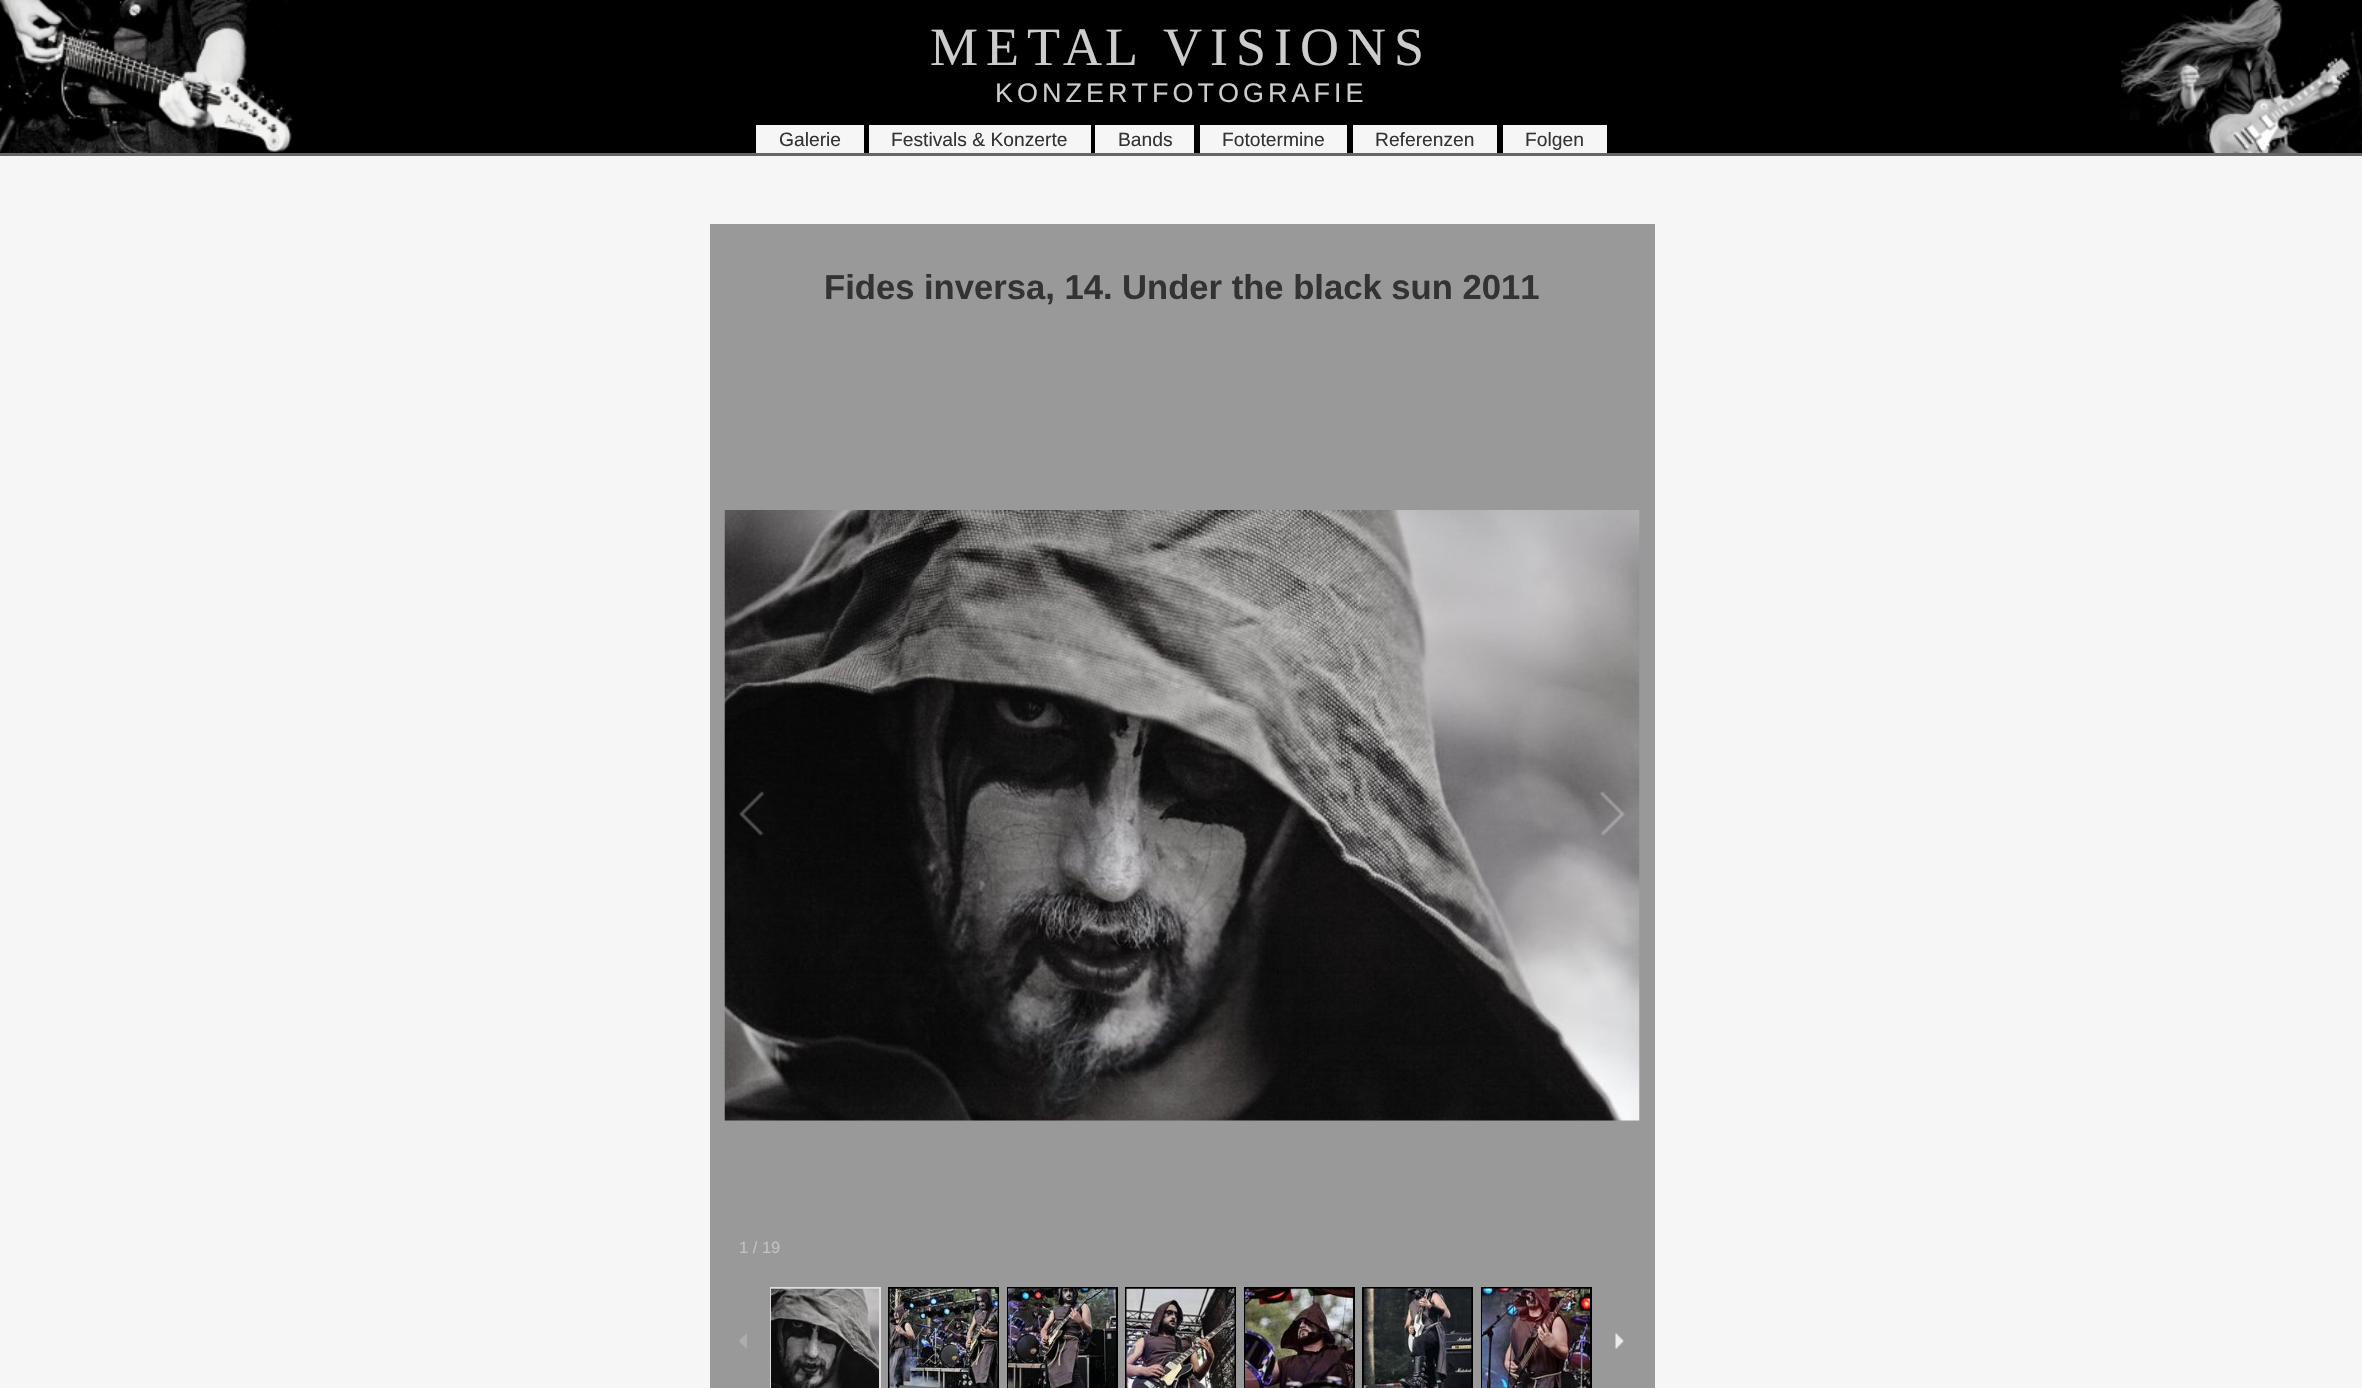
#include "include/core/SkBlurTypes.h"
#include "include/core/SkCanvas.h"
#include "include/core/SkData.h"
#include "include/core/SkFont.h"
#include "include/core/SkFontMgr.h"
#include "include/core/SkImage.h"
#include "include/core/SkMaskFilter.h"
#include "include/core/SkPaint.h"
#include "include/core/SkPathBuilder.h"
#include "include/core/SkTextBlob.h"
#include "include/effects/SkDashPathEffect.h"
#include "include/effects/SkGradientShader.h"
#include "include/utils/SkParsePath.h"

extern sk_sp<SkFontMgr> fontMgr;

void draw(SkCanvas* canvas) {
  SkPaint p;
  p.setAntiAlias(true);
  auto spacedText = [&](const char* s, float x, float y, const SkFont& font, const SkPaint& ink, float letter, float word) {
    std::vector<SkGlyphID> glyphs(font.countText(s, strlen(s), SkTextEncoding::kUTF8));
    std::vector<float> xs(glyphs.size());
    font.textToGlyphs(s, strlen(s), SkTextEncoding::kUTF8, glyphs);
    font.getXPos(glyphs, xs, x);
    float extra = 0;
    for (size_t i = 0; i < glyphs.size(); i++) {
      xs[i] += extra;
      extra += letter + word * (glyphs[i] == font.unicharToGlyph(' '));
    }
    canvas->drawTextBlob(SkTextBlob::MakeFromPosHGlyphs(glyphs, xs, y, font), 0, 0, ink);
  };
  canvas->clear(SK_ColorBLACK);
  canvas->drawImageRect(SkImages::DeferredFromEncodedData(SkData::MakeFromFileName("images/1.png")), SkRect::MakeLTRB(0, 0, 2362, 153), SkSamplingOptions());
  p.setColor(SkColorSetRGB(102, 102, 102));
  canvas->drawRect(SkRect::MakeLTRB(0, 153, 2362, 156), p);
  p.setColor(SkColorSetRGB(246, 246, 246));
  canvas->drawRect(SkRect::MakeLTRB(756, 125, 864, 153), p);
  canvas->drawRect(SkRect::MakeLTRB(869, 125, 1091, 153), p);
  canvas->drawRect(SkRect::MakeLTRB(1095, 125, 1194, 153), p);
  canvas->drawRect(SkRect::MakeLTRB(1200, 125, 1347, 153), p);
  canvas->drawRect(SkRect::MakeLTRB(1353, 125, 1497, 153), p);
  canvas->drawRect(SkRect::MakeLTRB(1503, 125, 1607, 153), p);
  canvas->drawRect(SkRect::MakeLTRB(0, 156, 2362, 1388), p);
  p.setColor(SkColorSetRGB(153, 153, 153));
  canvas->drawRect(SkRect::MakeLTRB(710, 224, 1655, 1388), p);
  canvas->drawImageRect(SkImages::DeferredFromEncodedData(SkData::MakeFromFileName("images/2.png")), SkRect::MakeLTRB(724, 510, 1640, 1121), SkSamplingOptions());
  canvas->drawImageRect(SkImages::DeferredFromEncodedData(SkData::MakeFromFileName("images/3.png")), SkRect::MakeLTRB(739, 791, 764, 836), SkSamplingOptions());
  canvas->drawImageRect(SkImages::DeferredFromEncodedData(SkData::MakeFromFileName("images/4.png")), SkRect::MakeLTRB(1600, 791, 1625, 836), SkSamplingOptions());
  canvas->drawImageRect(SkImages::DeferredFromEncodedData(SkData::MakeFromFileName("images/5.png")), SkRect::MakeLTRB(739, 1333, 747, 1349), SkSamplingOptions());
  p.setStyle(SkPaint::kStroke_Style);
  p.setStrokeWidth(2);
  p.setColor(SkColorSetRGB(221, 221, 221));
  canvas->drawRect(SkRect::MakeLTRB(771, 1288, 880, 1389), p);
  canvas->drawImageRect(SkImages::DeferredFromEncodedData(SkData::MakeFromFileName("images/6.png")), SkRect::MakeLTRB(771, 1288, 879, 1388), SkSamplingOptions());
  p.setStyle(SkPaint::kFill_Style);
  p.setColor(SK_ColorBLACK);
  canvas->drawRect(SkRect::MakeLTRB(888, 1287, 999, 1388), p);
  canvas->drawImageRect(SkImages::DeferredFromEncodedData(SkData::MakeFromFileName("images/7.png")), SkRect::MakeLTRB(889, 1288, 998, 1388), SkSamplingOptions());
  canvas->drawRect(SkRect::MakeLTRB(1007, 1287, 1118, 1388), p);
  canvas->drawImageRect(SkImages::DeferredFromEncodedData(SkData::MakeFromFileName("images/8.png")), SkRect::MakeLTRB(1008, 1288, 1116, 1388), SkSamplingOptions());
  canvas->drawRect(SkRect::MakeLTRB(1125, 1287, 1236, 1388), p);
  canvas->drawImageRect(SkImages::DeferredFromEncodedData(SkData::MakeFromFileName("images/9.png")), SkRect::MakeLTRB(1126, 1288, 1235, 1388), SkSamplingOptions());
  canvas->drawRect(SkRect::MakeLTRB(1244, 1287, 1355, 1388), p);
  canvas->drawImageRect(SkImages::DeferredFromEncodedData(SkData::MakeFromFileName("images/10.png")), SkRect::MakeLTRB(1245, 1288, 1353, 1388), SkSamplingOptions());
  canvas->drawRect(SkRect::MakeLTRB(1362, 1287, 1473, 1388), p);
  canvas->drawImageRect(SkImages::DeferredFromEncodedData(SkData::MakeFromFileName("images/11.png")), SkRect::MakeLTRB(1363, 1288, 1472, 1388), SkSamplingOptions());
  canvas->drawRect(SkRect::MakeLTRB(1481, 1287, 1592, 1388), p);
  canvas->drawImageRect(SkImages::DeferredFromEncodedData(SkData::MakeFromFileName("images/12.png")), SkRect::MakeLTRB(1482, 1288, 1590, 1388), SkSamplingOptions());
  canvas->drawImageRect(SkImages::DeferredFromEncodedData(SkData::MakeFromFileName("images/13.png")), SkRect::MakeLTRB(1615, 1333, 1624, 1349), SkSamplingOptions());
  SkFont font1(fontMgr->matchFamilyStyle("Liberation Serif", SkFontStyle::Normal()), 54);
  font1.setSubpixel(true);
  p.setColor(SkColorSetRGB(204, 204, 204));
  spacedText("ME", 930, 65, font1, p, 8, 0);
  spacedText("TAL", 1027, 65, font1, p, 3, 0);
  spacedText("VISIONS", 1163, 65, font1, p, 8, 0);
  SkFont font2(fontMgr->matchFamilyStyle("Liberation Sans", SkFontStyle::Normal()), 27);
  font2.setSubpixel(true);
  spacedText("KONZERTFOTOGRAFIE", 995, 102, font2, p, 4, 0);
  SkFont font3(fontMgr->matchFamilyStyle("Liberation Sans", SkFontStyle::Normal()), 19.25f);
  font3.setSubpixel(true);
  p.setColor(SkColorSetRGB(51, 51, 51));
  canvas->drawString("Galerie", 779, 146, font3, p);
  canvas->drawString("Festivals & Konzerte", 891, 146, font3, p);
  canvas->drawString("Bands", 1118, 146, font3, p);
  canvas->drawString("Fototermine", 1222, 146, font3, p);
  canvas->drawString("Referenzen", 1375, 146, font3, p);
  canvas->drawString("Folgen", 1525, 146, font3, p);
  SkFont font4(fontMgr->matchFamilyStyle("Liberation Sans", SkFontStyle::Bold()), 34.6f);
  font4.setSubpixel(true);
  canvas->drawString("Fides inversa, 14. Under the black sun 2011", 824, 299, font4, p);
  SkFont font5(fontMgr->matchFamilyStyle("Liberation Sans", SkFontStyle::Normal()), 16.5f);
  font5.setSubpixel(true);
  p.setColor(SkColorSetRGB(194, 194, 194));
  canvas->drawString("1 / 19", 739, 1253, font5, p);
}
